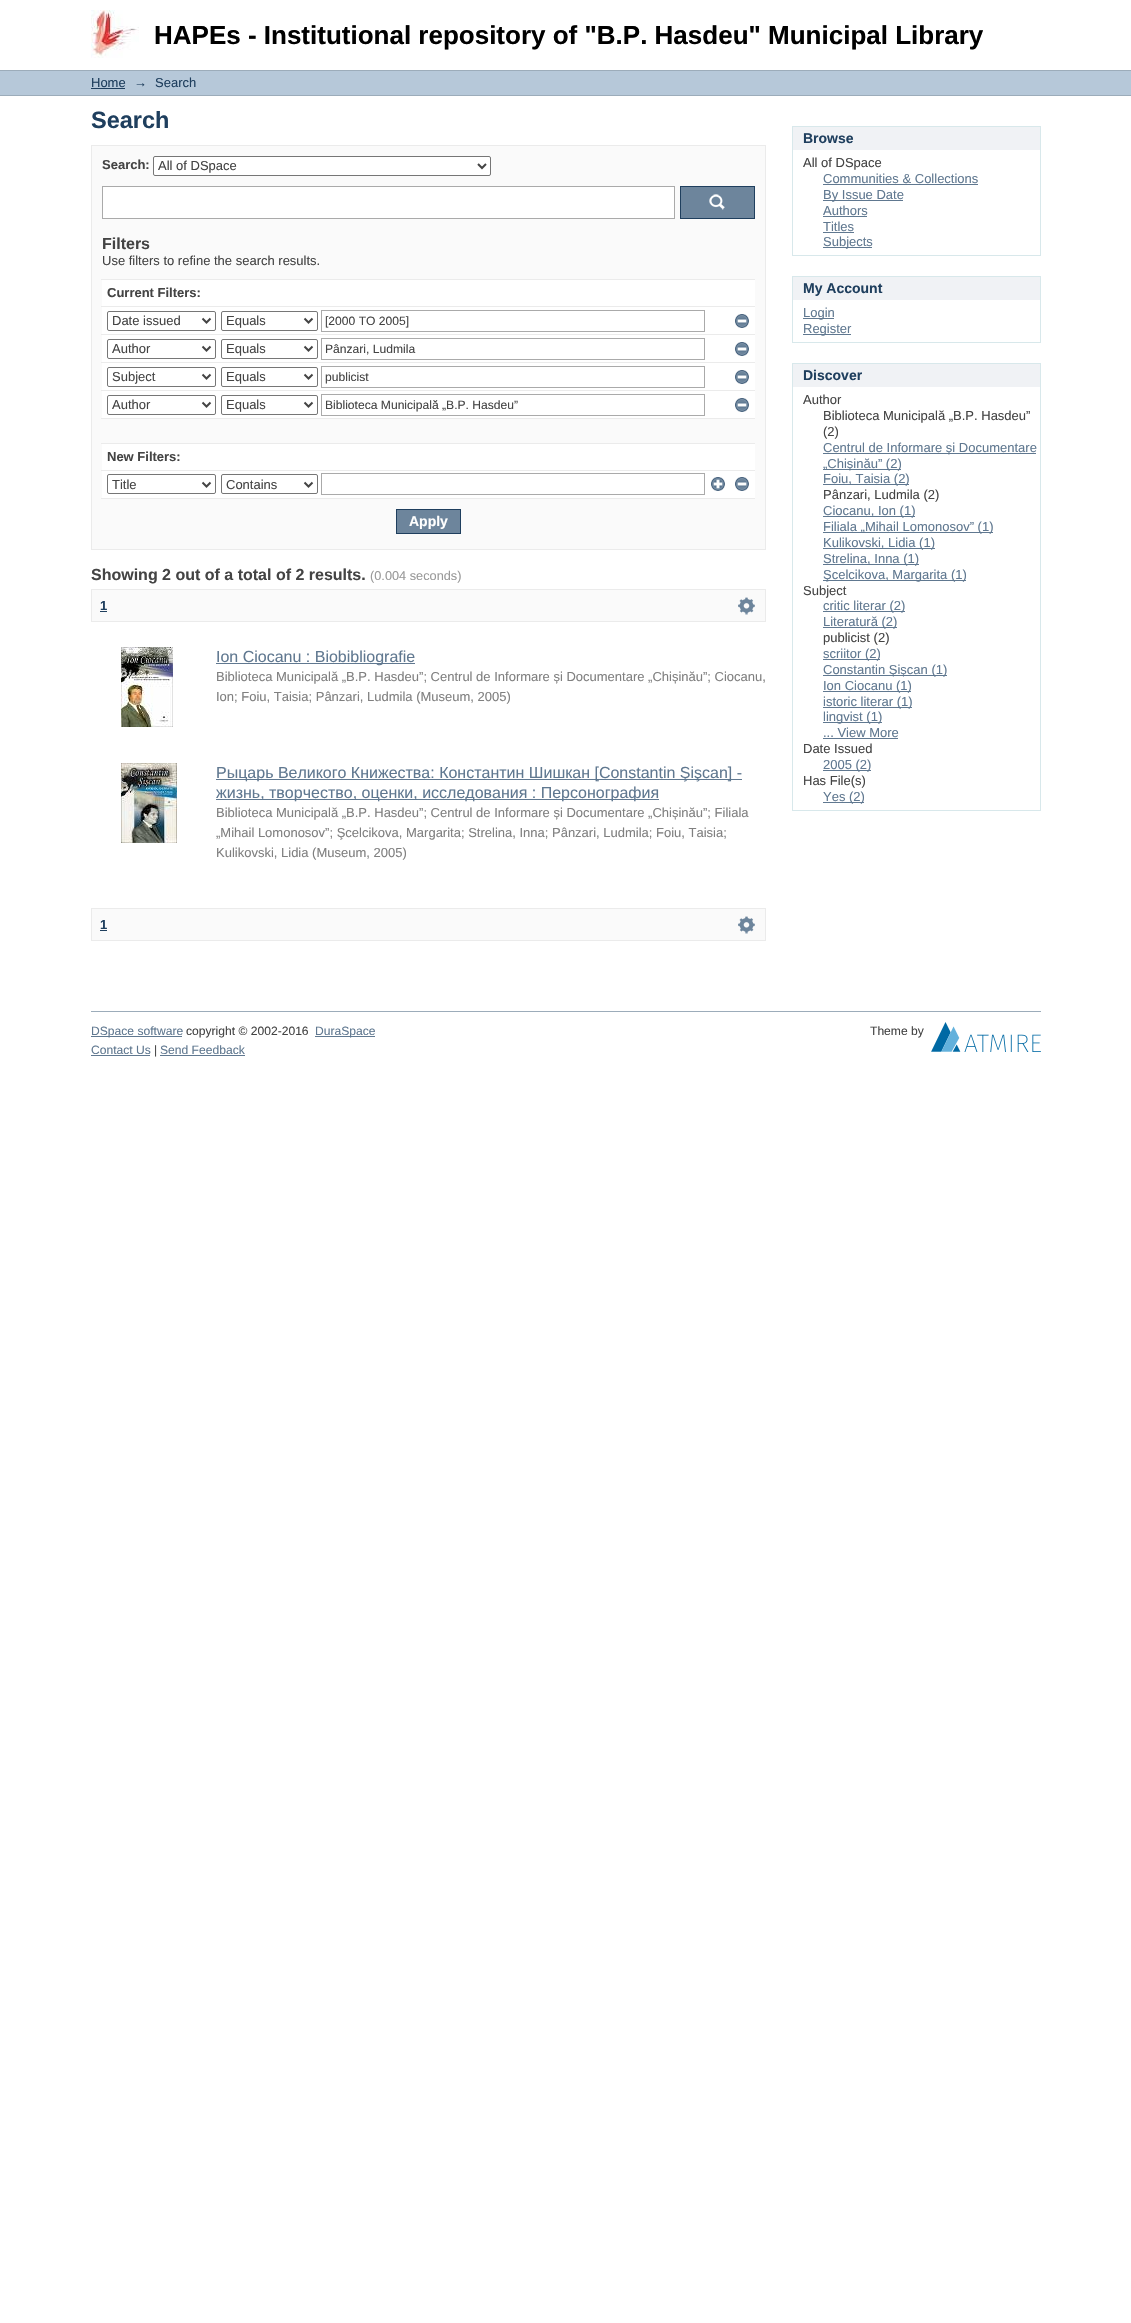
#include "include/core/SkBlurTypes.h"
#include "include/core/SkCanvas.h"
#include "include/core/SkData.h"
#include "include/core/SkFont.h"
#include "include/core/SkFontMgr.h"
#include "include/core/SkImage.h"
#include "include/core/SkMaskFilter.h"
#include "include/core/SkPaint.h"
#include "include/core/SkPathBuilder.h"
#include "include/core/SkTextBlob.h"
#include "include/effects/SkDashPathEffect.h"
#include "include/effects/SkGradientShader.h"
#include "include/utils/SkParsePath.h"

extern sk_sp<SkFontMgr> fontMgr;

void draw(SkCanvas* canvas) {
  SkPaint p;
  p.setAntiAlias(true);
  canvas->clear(SK_ColorWHITE);
  canvas->drawImageRect(SkImages::DeferredFromEncodedData(SkData::MakeFromFileName("images/1.png")), SkRect::MakeLTRB(91, 10, 139, 58), SkSamplingOptions());
  p.setColor(SkColorSetRGB(182, 200, 217));
  canvas->drawRect(SkRect::MakeLTRB(0, 71, 1131, 95), p);
  p.setColor(SkColorSetRGB(156, 172, 186));
  canvas->drawRect(SkRect::MakeLTRB(0, 70, 1131, 71), p);
  canvas->drawRect(SkRect::MakeLTRB(0, 95, 1131, 96), p);
  p.setColor(SkColorSetRGB(31, 63, 94));
  canvas->drawRect(SkRect::MakeLTRB(91, 88, 125, 89), p);
  p.setColor(SkColorSetRGB(250, 250, 250));
  canvas->drawRect(SkRect::MakeLTRB(91.5f, 145.5f, 765.5f, 549.5f), p);
  p.setStyle(SkPaint::kStroke_Style);
  p.setStrokeWidth(1);
  p.setColor(SkColorSetRGB(235, 235, 235));
  canvas->drawRect(SkRect::MakeLTRB(91.5f, 145.5f, 765.5f, 549.5f), p);
  p.setStyle(SkPaint::kFill_Style);
  p.setColor(SK_ColorWHITE);
  canvas->drawRoundRect(SkRect::MakeLTRB(153.5f, 156.5f, 490.5f, 175.5f), 1.5f, 1.5f, p);
  p.setStyle(SkPaint::kStroke_Style);
  p.setColor(SkColorSetRGB(118, 118, 118));
  canvas->drawRoundRect(SkRect::MakeLTRB(153.5f, 156.5f, 490.5f, 175.5f), 1.5f, 1.5f, p);
  p.setStrokeWidth(2);
  p.setColor(SkColorSetRGB(68, 68, 68));
  canvas->drawPath(SkPathBuilder().moveTo(478, 164).lineTo(482, 168).lineTo(486, 164).detach(), p);
  p.setStyle(SkPaint::kFill_Style);
  p.setColor(SK_ColorWHITE);
  canvas->drawRect(SkRect::MakeLTRB(102.5f, 186.5f, 674.5f, 218.5f), p);
  p.setStyle(SkPaint::kStroke_Style);
  p.setStrokeWidth(1);
  p.setColor(SkColorSetRGB(170, 170, 170));
  canvas->drawRect(SkRect::MakeLTRB(102.5f, 186.5f, 674.5f, 218.5f), p);
  p.setStyle(SkPaint::kFill_Style);
  p.setColor(SkColorSetRGB(109, 133, 156));
  canvas->drawRect(SkRect::MakeLTRB(681, 187, 754, 218), p);
  canvas->drawImageRect(SkImages::DeferredFromEncodedData(SkData::MakeFromFileName("images/2.png")), SkRect::MakeLTRB(709, 194, 725, 210), SkSamplingOptions());
  p.setStyle(SkPaint::kStroke_Style);
  p.setColor(SkColorSetRGB(31, 63, 94));
  canvas->drawRect(SkRect::MakeLTRB(680.5f, 186.5f, 754.5f, 218.5f), p);
  p.setStyle(SkPaint::kFill_Style);
  p.setColor(SK_ColorWHITE);
  canvas->drawRect(SkRect::MakeLTRB(102, 280, 755, 498), p);
  p.setColor(SkColorSetRGB(235, 235, 235));
  canvas->drawRect(SkRect::MakeLTRB(101, 279, 755, 280), p);
  canvas->drawRect(SkRect::MakeLTRB(101, 306, 755, 307), p);
  p.setStyle(SkPaint::kStroke_Style);
  p.setColor(SkColorSetRGB(118, 118, 118));
  canvas->drawRoundRect(SkRect::MakeLTRB(107.5f, 311.5f, 215.5f, 330.5f), 1.5f, 1.5f, p);
  p.setStrokeWidth(2);
  p.setColor(SkColorSetRGB(68, 68, 68));
  canvas->drawPath(SkPathBuilder().moveTo(202.5f, 318.5f).lineTo(206.5f, 322.5f).lineTo(210.5f, 318.5f).detach(), p);
  p.setStrokeWidth(1);
  p.setColor(SkColorSetRGB(118, 118, 118));
  canvas->drawRoundRect(SkRect::MakeLTRB(221.5f, 311.5f, 317.5f, 330.5f), 1.5f, 1.5f, p);
  p.setStrokeWidth(2);
  p.setColor(SkColorSetRGB(68, 68, 68));
  canvas->drawPath(SkPathBuilder().moveTo(304.5f, 318.5f).lineTo(308.5f, 322.5f).lineTo(312.5f, 318.5f).detach(), p);
  p.setStrokeWidth(1);
  p.setColor(SkColorSetRGB(170, 170, 170));
  canvas->drawRect(SkRect::MakeLTRB(321.5f, 310.5f, 704.5f, 331.5f), p);
  canvas->drawImageRect(SkImages::DeferredFromEncodedData(SkData::MakeFromFileName("images/3.png")), SkRect::MakeLTRB(735, 314, 749, 328), SkSamplingOptions());
  p.setStyle(SkPaint::kFill_Style);
  p.setColor(SkColorSetRGB(235, 235, 235));
  canvas->drawRect(SkRect::MakeLTRB(101, 334, 755, 335), p);
  p.setStyle(SkPaint::kStroke_Style);
  p.setColor(SkColorSetRGB(118, 118, 118));
  canvas->drawRoundRect(SkRect::MakeLTRB(107.5f, 339.5f, 215.5f, 358.5f), 1.5f, 1.5f, p);
  p.setStrokeWidth(2);
  p.setColor(SkColorSetRGB(68, 68, 68));
  canvas->drawPath(SkPathBuilder().moveTo(202.5f, 346.5f).lineTo(206.5f, 350.5f).lineTo(210.5f, 346.5f).detach(), p);
  p.setStrokeWidth(1);
  p.setColor(SkColorSetRGB(118, 118, 118));
  canvas->drawRoundRect(SkRect::MakeLTRB(221.5f, 339.5f, 317.5f, 358.5f), 1.5f, 1.5f, p);
  p.setStrokeWidth(2);
  p.setColor(SkColorSetRGB(68, 68, 68));
  canvas->drawPath(SkPathBuilder().moveTo(304.5f, 346.5f).lineTo(308.5f, 350.5f).lineTo(312.5f, 346.5f).detach(), p);
  p.setStrokeWidth(1);
  p.setColor(SkColorSetRGB(170, 170, 170));
  canvas->drawRect(SkRect::MakeLTRB(321.5f, 338.5f, 704.5f, 359.5f), p);
  canvas->drawImageRect(SkImages::DeferredFromEncodedData(SkData::MakeFromFileName("images/3.png")), SkRect::MakeLTRB(735, 342, 749, 356), SkSamplingOptions());
  p.setStyle(SkPaint::kFill_Style);
  p.setColor(SkColorSetRGB(235, 235, 235));
  canvas->drawRect(SkRect::MakeLTRB(101, 362, 755, 363), p);
  p.setStyle(SkPaint::kStroke_Style);
  p.setColor(SkColorSetRGB(118, 118, 118));
  canvas->drawRoundRect(SkRect::MakeLTRB(107.5f, 367.5f, 215.5f, 386.5f), 1.5f, 1.5f, p);
  p.setStrokeWidth(2);
  p.setColor(SkColorSetRGB(68, 68, 68));
  canvas->drawPath(SkPathBuilder().moveTo(202.5f, 374.5f).lineTo(206.5f, 378.5f).lineTo(210.5f, 374.5f).detach(), p);
  p.setStrokeWidth(1);
  p.setColor(SkColorSetRGB(118, 118, 118));
  canvas->drawRoundRect(SkRect::MakeLTRB(221.5f, 367.5f, 317.5f, 386.5f), 1.5f, 1.5f, p);
  p.setStrokeWidth(2);
  p.setColor(SkColorSetRGB(68, 68, 68));
  canvas->drawPath(SkPathBuilder().moveTo(304.5f, 374.5f).lineTo(308.5f, 378.5f).lineTo(312.5f, 374.5f).detach(), p);
  p.setStrokeWidth(1);
  p.setColor(SkColorSetRGB(170, 170, 170));
  canvas->drawRect(SkRect::MakeLTRB(321.5f, 366.5f, 704.5f, 387.5f), p);
  canvas->drawImageRect(SkImages::DeferredFromEncodedData(SkData::MakeFromFileName("images/3.png")), SkRect::MakeLTRB(735, 370, 749, 384), SkSamplingOptions());
  p.setStyle(SkPaint::kFill_Style);
  p.setColor(SkColorSetRGB(235, 235, 235));
  canvas->drawRect(SkRect::MakeLTRB(101, 390, 755, 391), p);
  p.setStyle(SkPaint::kStroke_Style);
  p.setColor(SkColorSetRGB(118, 118, 118));
  canvas->drawRoundRect(SkRect::MakeLTRB(107.5f, 395.5f, 215.5f, 414.5f), 1.5f, 1.5f, p);
  p.setStrokeWidth(2);
  p.setColor(SkColorSetRGB(68, 68, 68));
  canvas->drawPath(SkPathBuilder().moveTo(202.5f, 402.5f).lineTo(206.5f, 406.5f).lineTo(210.5f, 402.5f).detach(), p);
  p.setStrokeWidth(1);
  p.setColor(SkColorSetRGB(118, 118, 118));
  canvas->drawRoundRect(SkRect::MakeLTRB(221.5f, 395.5f, 317.5f, 414.5f), 1.5f, 1.5f, p);
  p.setStrokeWidth(2);
  p.setColor(SkColorSetRGB(68, 68, 68));
  canvas->drawPath(SkPathBuilder().moveTo(304.5f, 402.5f).lineTo(308.5f, 406.5f).lineTo(312.5f, 402.5f).detach(), p);
  p.setStrokeWidth(1);
  p.setColor(SkColorSetRGB(170, 170, 170));
  canvas->drawRect(SkRect::MakeLTRB(321.5f, 394.5f, 704.5f, 415.5f), p);
  canvas->drawImageRect(SkImages::DeferredFromEncodedData(SkData::MakeFromFileName("images/3.png")), SkRect::MakeLTRB(735, 398, 749, 412), SkSamplingOptions());
  p.setStyle(SkPaint::kFill_Style);
  p.setColor(SkColorSetRGB(250, 250, 250));
  canvas->drawRect(SkRect::MakeLTRB(102, 419, 755, 443), p);
  p.setColor(SkColorSetRGB(235, 235, 235));
  canvas->drawRect(SkRect::MakeLTRB(101, 418, 755, 419), p);
  canvas->drawRect(SkRect::MakeLTRB(101, 443, 755, 444), p);
  canvas->drawRect(SkRect::MakeLTRB(101, 470, 755, 471), p);
  p.setStyle(SkPaint::kStroke_Style);
  p.setColor(SkColorSetRGB(118, 118, 118));
  canvas->drawRoundRect(SkRect::MakeLTRB(107.5f, 474.5f, 215.5f, 493.5f), 1.5f, 1.5f, p);
  p.setStrokeWidth(2);
  p.setColor(SkColorSetRGB(68, 68, 68));
  canvas->drawPath(SkPathBuilder().moveTo(202.5f, 482.5f).lineTo(206.5f, 486.5f).lineTo(210.5f, 482.5f).detach(), p);
  p.setStrokeWidth(1);
  p.setColor(SkColorSetRGB(118, 118, 118));
  canvas->drawRoundRect(SkRect::MakeLTRB(221.5f, 474.5f, 317.5f, 493.5f), 1.5f, 1.5f, p);
  p.setStrokeWidth(2);
  p.setColor(SkColorSetRGB(68, 68, 68));
  canvas->drawPath(SkPathBuilder().moveTo(304.5f, 482.5f).lineTo(308.5f, 486.5f).lineTo(312.5f, 482.5f).detach(), p);
  p.setStrokeWidth(1);
  p.setColor(SkColorSetRGB(170, 170, 170));
  canvas->drawRect(SkRect::MakeLTRB(321.5f, 473.5f, 704.5f, 494.5f), p);
  canvas->drawImageRect(SkImages::DeferredFromEncodedData(SkData::MakeFromFileName("images/4.png")), SkRect::MakeLTRB(711, 477, 725, 491), SkSamplingOptions());
  canvas->drawImageRect(SkImages::DeferredFromEncodedData(SkData::MakeFromFileName("images/3.png")), SkRect::MakeLTRB(735, 477, 749, 491), SkSamplingOptions());
  p.setStyle(SkPaint::kFill_Style);
  p.setColor(SkColorSetRGB(235, 235, 235));
  canvas->drawRect(SkRect::MakeLTRB(101, 498, 755, 499), p);
  p.setColor(SkColorSetRGB(109, 133, 156));
  canvas->drawRect(SkRect::MakeLTRB(396.5f, 509.5f, 460.5f, 533.5f), p);
  p.setStyle(SkPaint::kStroke_Style);
  p.setColor(SkColorSetRGB(31, 63, 94));
  canvas->drawRect(SkRect::MakeLTRB(396.5f, 509.5f, 460.5f, 533.5f), p);
  p.setStyle(SkPaint::kFill_Style);
  p.setColor(SkColorSetRGB(250, 250, 250));
  canvas->drawRect(SkRect::MakeLTRB(91.5f, 589.5f, 765.5f, 621.5f), p);
  p.setStyle(SkPaint::kStroke_Style);
  p.setColor(SkColorSetRGB(235, 235, 235));
  canvas->drawRect(SkRect::MakeLTRB(91.5f, 589.5f, 765.5f, 621.5f), p);
  p.setStyle(SkPaint::kFill_Style);
  p.setColor(SkColorSetRGB(31, 63, 94));
  canvas->drawRect(SkRect::MakeLTRB(100, 611, 107, 612), p);
  canvas->drawImageRect(SkImages::DeferredFromEncodedData(SkData::MakeFromFileName("images/5.png")), SkRect::MakeLTRB(738, 597, 755, 615), SkSamplingOptions());
  canvas->drawImageRect(SkImages::DeferredFromEncodedData(SkData::MakeFromFileName("images/6.png")), SkRect::MakeLTRB(121, 647, 173, 727), SkSamplingOptions());
  p.setColor(SkColorSetRGB(96, 120, 144));
  canvas->drawRect(SkRect::MakeLTRB(216, 663, 415, 664), p);
  canvas->drawImageRect(SkImages::DeferredFromEncodedData(SkData::MakeFromFileName("images/7.png")), SkRect::MakeLTRB(121, 763, 177, 843), SkSamplingOptions());
  canvas->drawRect(SkRect::MakeLTRB(216, 779, 742, 780), p);
  canvas->drawRect(SkRect::MakeLTRB(216, 799, 659, 800), p);
  p.setColor(SkColorSetRGB(250, 250, 250));
  canvas->drawRect(SkRect::MakeLTRB(91.5f, 908.5f, 765.5f, 940.5f), p);
  p.setStyle(SkPaint::kStroke_Style);
  p.setColor(SkColorSetRGB(235, 235, 235));
  canvas->drawRect(SkRect::MakeLTRB(91.5f, 908.5f, 765.5f, 940.5f), p);
  p.setStyle(SkPaint::kFill_Style);
  p.setColor(SkColorSetRGB(31, 63, 94));
  canvas->drawRect(SkRect::MakeLTRB(100, 930, 107, 931), p);
  canvas->drawImageRect(SkImages::DeferredFromEncodedData(SkData::MakeFromFileName("images/5.png")), SkRect::MakeLTRB(738, 916, 755, 934), SkSamplingOptions());
  p.setColor(SkColorSetRGB(240, 242, 245));
  canvas->drawRect(SkRect::MakeLTRB(793, 127, 1040, 150), p);
  p.setColor(SkColorSetRGB(216, 232, 235));
  canvas->drawRect(SkRect::MakeLTRB(792, 126, 1041, 127), p);
  canvas->drawRect(SkRect::MakeLTRB(1040, 126, 1041, 256), p);
  canvas->drawRect(SkRect::MakeLTRB(792, 126, 793, 150), p);
  canvas->drawRect(SkRect::MakeLTRB(792, 255, 1041, 256), p);
  canvas->drawRect(SkRect::MakeLTRB(792, 150, 793, 256), p);
  p.setColor(SkColorSetRGB(96, 120, 144));
  canvas->drawRect(SkRect::MakeLTRB(823, 184, 978, 185), p);
  canvas->drawRect(SkRect::MakeLTRB(823, 200, 903, 201), p);
  canvas->drawRect(SkRect::MakeLTRB(823, 216, 867, 217), p);
  canvas->drawRect(SkRect::MakeLTRB(823, 232, 854, 233), p);
  canvas->drawRect(SkRect::MakeLTRB(823, 247, 872, 248), p);
  p.setColor(SkColorSetRGB(240, 242, 245));
  canvas->drawRect(SkRect::MakeLTRB(793, 277, 1040, 300), p);
  p.setColor(SkColorSetRGB(216, 232, 235));
  canvas->drawRect(SkRect::MakeLTRB(792, 276, 1041, 277), p);
  canvas->drawRect(SkRect::MakeLTRB(1040, 276, 1041, 343), p);
  canvas->drawRect(SkRect::MakeLTRB(792, 276, 793, 300), p);
  canvas->drawRect(SkRect::MakeLTRB(792, 342, 1041, 343), p);
  canvas->drawRect(SkRect::MakeLTRB(792, 300, 793, 343), p);
  p.setColor(SkColorSetRGB(96, 120, 144));
  canvas->drawRect(SkRect::MakeLTRB(803, 318, 834, 319), p);
  canvas->drawRect(SkRect::MakeLTRB(803, 334, 851, 335), p);
  p.setColor(SkColorSetRGB(240, 242, 245));
  canvas->drawRect(SkRect::MakeLTRB(793, 364, 1040, 387), p);
  p.setColor(SkColorSetRGB(216, 232, 235));
  canvas->drawRect(SkRect::MakeLTRB(792, 363, 1041, 364), p);
  canvas->drawRect(SkRect::MakeLTRB(1040, 363, 1041, 811), p);
  canvas->drawRect(SkRect::MakeLTRB(792, 363, 793, 387), p);
  canvas->drawRect(SkRect::MakeLTRB(792, 810, 1041, 811), p);
  canvas->drawRect(SkRect::MakeLTRB(792, 387, 793, 811), p);
  p.setColor(SkColorSetRGB(96, 120, 144));
  canvas->drawRect(SkRect::MakeLTRB(823, 453, 1036, 454), p);
  canvas->drawRect(SkRect::MakeLTRB(823, 469, 901, 470), p);
  canvas->drawRect(SkRect::MakeLTRB(823, 484, 909, 485), p);
  canvas->drawRect(SkRect::MakeLTRB(823, 516, 915, 517), p);
  canvas->drawRect(SkRect::MakeLTRB(823, 532, 993, 533), p);
  canvas->drawRect(SkRect::MakeLTRB(823, 548, 935, 549), p);
  canvas->drawRect(SkRect::MakeLTRB(823, 564, 919, 565), p);
  canvas->drawRect(SkRect::MakeLTRB(823, 580, 966, 581), p);
  canvas->drawRect(SkRect::MakeLTRB(823, 611, 905, 612), p);
  canvas->drawRect(SkRect::MakeLTRB(823, 627, 897, 628), p);
  canvas->drawRect(SkRect::MakeLTRB(823, 659, 880, 660), p);
  canvas->drawRect(SkRect::MakeLTRB(823, 675, 947, 676), p);
  canvas->drawRect(SkRect::MakeLTRB(823, 691, 911, 692), p);
  canvas->drawRect(SkRect::MakeLTRB(823, 707, 912, 708), p);
  canvas->drawRect(SkRect::MakeLTRB(823, 722, 882, 723), p);
  canvas->drawRect(SkRect::MakeLTRB(823, 738, 898, 739), p);
  canvas->drawRect(SkRect::MakeLTRB(823, 770, 871, 771), p);
  canvas->drawRect(SkRect::MakeLTRB(823, 802, 864, 803), p);
  p.setColor(SkColorSetRGB(156, 172, 186));
  canvas->drawRect(SkRect::MakeLTRB(91, 1011, 1041, 1012), p);
  p.setColor(SkColorSetRGB(96, 120, 144));
  canvas->drawRect(SkRect::MakeLTRB(91, 1036, 182, 1037), p);
  canvas->drawRect(SkRect::MakeLTRB(315, 1036, 375, 1037), p);
  canvas->drawImageRect(SkImages::DeferredFromEncodedData(SkData::MakeFromFileName("images/8.png")), SkRect::MakeLTRB(931, 1022, 1041, 1052), SkSamplingOptions());
  canvas->drawRect(SkRect::MakeLTRB(91, 1055, 150, 1056), p);
  canvas->drawRect(SkRect::MakeLTRB(160, 1055, 245, 1056), p);
  SkFont font1(fontMgr->matchFamilyStyle("Liberation Sans", SkFontStyle::Bold()), 26);
  font1.setSubpixel(true);
  p.setColor(SK_ColorBLACK);
  canvas->drawString("HAPEs - Institutional repository of \"B.P. Hasdeu\" Municipal Library", 154, 44, font1, p);
  SkFont font2(fontMgr->matchFamilyStyle("Liberation Sans", SkFontStyle::Normal()), 13);
  font2.setSubpixel(true);
  p.setColor(SkColorSetRGB(31, 63, 94));
  canvas->drawString("Home", 91, 87, font2, p);
  canvas->drawString("→", 134, 87, font2, p);
  canvas->drawString("Search", 155, 87, font2, p);
  SkFont font3(fontMgr->matchFamilyStyle("Liberation Sans", SkFontStyle::Bold()), 23.5f);
  font3.setSubpixel(true);
  canvas->drawString("Search", 91, 128, font3, p);
  SkFont font4(fontMgr->matchFamilyStyle("Liberation Sans", SkFontStyle::Bold()), 13);
  font4.setSubpixel(true);
  p.setColor(SkColorSetRGB(68, 68, 68));
  canvas->drawString("Search:", 102, 169, font4, p);
  canvas->drawString("All of DSpace", 158, 170, font2, p);
  SkFont font5(fontMgr->matchFamilyStyle("Liberation Sans", SkFontStyle::Bold()), 16);
  font5.setSubpixel(true);
  canvas->drawString("Filters", 102, 249, font5, p);
  canvas->drawString("Use filters to refine the search results.", 102, 265, font2, p);
  canvas->drawString("Current Filters:", 107, 297, font4, p);
  canvas->drawString("Date issued", 112, 325, font2, p);
  canvas->drawString("Equals", 226, 325, font2, p);
  SkFont font6(fontMgr->matchFamilyStyle("Liberation Sans", SkFontStyle::Normal()), 12.1f);
  font6.setSubpixel(true);
  canvas->drawString("[2000 TO 2005]", 325, 325, font6, p);
  canvas->drawString("Author", 112, 353, font2, p);
  canvas->drawString("Equals", 226, 353, font2, p);
  canvas->drawString("Pânzari, Ludmila", 325, 353, font6, p);
  canvas->drawString("Subject", 112, 381, font2, p);
  canvas->drawString("Equals", 226, 381, font2, p);
  canvas->drawString("publicist", 325, 381, font6, p);
  canvas->drawString("Author", 112, 409, font2, p);
  canvas->drawString("Equals", 226, 409, font2, p);
  canvas->drawString("Biblioteca Municipală „B.P. Hasdeu”", 325, 409, font6, p);
  canvas->drawString("New Filters:", 107, 461, font4, p);
  canvas->drawString("Title", 112, 489, font2, p);
  canvas->drawString("Contains", 226, 489, font2, p);
  SkFont font7(fontMgr->matchFamilyStyle("Liberation Sans", SkFontStyle::Bold()), 14);
  font7.setSubpixel(true);
  p.setColor(SK_ColorWHITE);
  canvas->drawString("Apply", 409, 526, font7, p);
  p.setColor(SkColorSetRGB(68, 68, 68));
  canvas->drawString("Showing 2 out of a total of 2 results.", 91, 580, font5, p);
  SkFont font8(fontMgr->matchFamilyStyle("Liberation Sans", SkFontStyle::Normal()), 12.75f);
  font8.setSubpixel(true);
  p.setColor(SkColorSetRGB(153, 153, 153));
  canvas->drawString("(0.004 seconds)", 370, 580, font8, p);
  p.setColor(SkColorSetRGB(31, 63, 94));
  canvas->drawString("1", 100, 610, font4, p);
  SkFont font9(fontMgr->matchFamilyStyle("Liberation Sans", SkFontStyle::Normal()), 16);
  font9.setSubpixel(true);
  p.setColor(SkColorSetRGB(96, 120, 144));
  canvas->drawString("Ion Ciocanu : Biobibliografie", 216, 662, font9, p);
  p.setColor(SkColorSetRGB(128, 128, 128));
  canvas->drawString("Biblioteca Municipală „B.P. Hasdeu”; Centrul de Informare și Documentare „Chișinău”; Ciocanu,", 216, 681, font2, p);
  canvas->drawString("Ion; Foiu, Taisia; Pânzari, Ludmila (Museum, 2005)", 216, 701, font2, p);
  p.setColor(SkColorSetRGB(96, 120, 144));
  canvas->drawString("Рыцарь Великого Книжества: Константин Шишкан [Constantin Şişcan] -", 216, 778, font9, p);
  canvas->drawString("жизнь, творчество, оценки, исследования : Персонография", 216, 798, font9, p);
  p.setColor(SkColorSetRGB(128, 128, 128));
  canvas->drawString("Biblioteca Municipală „B.P. Hasdeu”; Centrul de Informare și Documentare „Chișinău”; Filiala", 216, 817, font2, p);
  canvas->drawString("„Mihail Lomonosov”; Şcelcikova, Margarita; Strelina, Inna; Pânzari, Ludmila; Foiu, Taisia;", 216, 837, font2, p);
  canvas->drawString("Kulikovski, Lidia (Museum, 2005)", 216, 857, font2, p);
  p.setColor(SkColorSetRGB(31, 63, 94));
  canvas->drawString("1", 100, 929, font4, p);
  canvas->drawString("Browse", 803, 143, font7, p);
  p.setColor(SkColorSetRGB(68, 68, 68));
  canvas->drawString("All of DSpace", 803, 167, font2, p);
  p.setColor(SkColorSetRGB(96, 120, 144));
  canvas->drawString("Communities & Collections", 823, 183, font2, p);
  canvas->drawString("By Issue Date", 823, 199, font2, p);
  canvas->drawString("Authors", 823, 215, font2, p);
  canvas->drawString("Titles", 823, 231, font2, p);
  canvas->drawString("Subjects", 823, 246, font2, p);
  p.setColor(SkColorSetRGB(31, 63, 94));
  canvas->drawString("My Account", 803, 293, font7, p);
  p.setColor(SkColorSetRGB(96, 120, 144));
  canvas->drawString("Login", 803, 317, font2, p);
  canvas->drawString("Register", 803, 333, font2, p);
  p.setColor(SkColorSetRGB(31, 63, 94));
  canvas->drawString("Discover", 803, 380, font7, p);
  p.setColor(SkColorSetRGB(68, 68, 68));
  canvas->drawString("Author", 803, 404, font2, p);
  canvas->drawString("Biblioteca Municipală „B.P. Hasdeu”", 823, 420, font2, p);
  canvas->drawString("(2)", 823, 436, font2, p);
  p.setColor(SkColorSetRGB(96, 120, 144));
  canvas->drawString("Centrul de Informare și Documentare", 823, 452, font2, p);
  canvas->drawString("„Chișinău” (2)", 823, 468, font2, p);
  canvas->drawString("Foiu, Taisia (2)", 823, 483, font2, p);
  p.setColor(SkColorSetRGB(68, 68, 68));
  canvas->drawString("Pânzari, Ludmila (2)", 823, 499, font2, p);
  p.setColor(SkColorSetRGB(96, 120, 144));
  canvas->drawString("Ciocanu, Ion (1)", 823, 515, font2, p);
  canvas->drawString("Filiala „Mihail Lomonosov” (1)", 823, 531, font2, p);
  canvas->drawString("Kulikovski, Lidia (1)", 823, 547, font2, p);
  canvas->drawString("Strelina, Inna (1)", 823, 563, font2, p);
  canvas->drawString("Şcelcikova, Margarita (1)", 823, 579, font2, p);
  p.setColor(SkColorSetRGB(68, 68, 68));
  canvas->drawString("Subject", 803, 595, font2, p);
  p.setColor(SkColorSetRGB(96, 120, 144));
  canvas->drawString("critic literar (2)", 823, 610, font2, p);
  canvas->drawString("Literatură (2)", 823, 626, font2, p);
  p.setColor(SkColorSetRGB(68, 68, 68));
  canvas->drawString("publicist (2)", 823, 642, font2, p);
  p.setColor(SkColorSetRGB(96, 120, 144));
  canvas->drawString("scriitor (2)", 823, 658, font2, p);
  canvas->drawString("Constantin Șișcan (1)", 823, 674, font2, p);
  canvas->drawString("Ion Ciocanu (1)", 823, 690, font2, p);
  canvas->drawString("istoric literar (1)", 823, 706, font2, p);
  canvas->drawString("lingvist (1)", 823, 721, font2, p);
  canvas->drawString("... View More", 823, 737, font2, p);
  p.setColor(SkColorSetRGB(68, 68, 68));
  canvas->drawString("Date Issued", 803, 753, font2, p);
  p.setColor(SkColorSetRGB(96, 120, 144));
  canvas->drawString("2005 (2)", 823, 769, font2, p);
  p.setColor(SkColorSetRGB(68, 68, 68));
  canvas->drawString("Has File(s)", 803, 785, font2, p);
  p.setColor(SkColorSetRGB(96, 120, 144));
  canvas->drawString("Yes (2)", 823, 801, font2, p);
  canvas->drawString("DSpace software", 91, 1035, font6, p);
  p.setColor(SkColorSetRGB(68, 68, 68));
  canvas->drawString("copyright © 2002-2016", 186, 1035, font6, p);
  p.setColor(SkColorSetRGB(96, 120, 144));
  canvas->drawString("DuraSpace", 315, 1035, font6, p);
  p.setColor(SkColorSetRGB(68, 68, 68));
  canvas->drawString("Theme by", 870, 1035, font6, p);
  p.setColor(SkColorSetRGB(96, 120, 144));
  canvas->drawString("Contact Us", 91, 1054, font6, p);
  p.setColor(SkColorSetRGB(68, 68, 68));
  canvas->drawString("|", 154, 1054, font6, p);
  p.setColor(SkColorSetRGB(96, 120, 144));
  canvas->drawString("Send Feedback", 160, 1054, font6, p);
}
